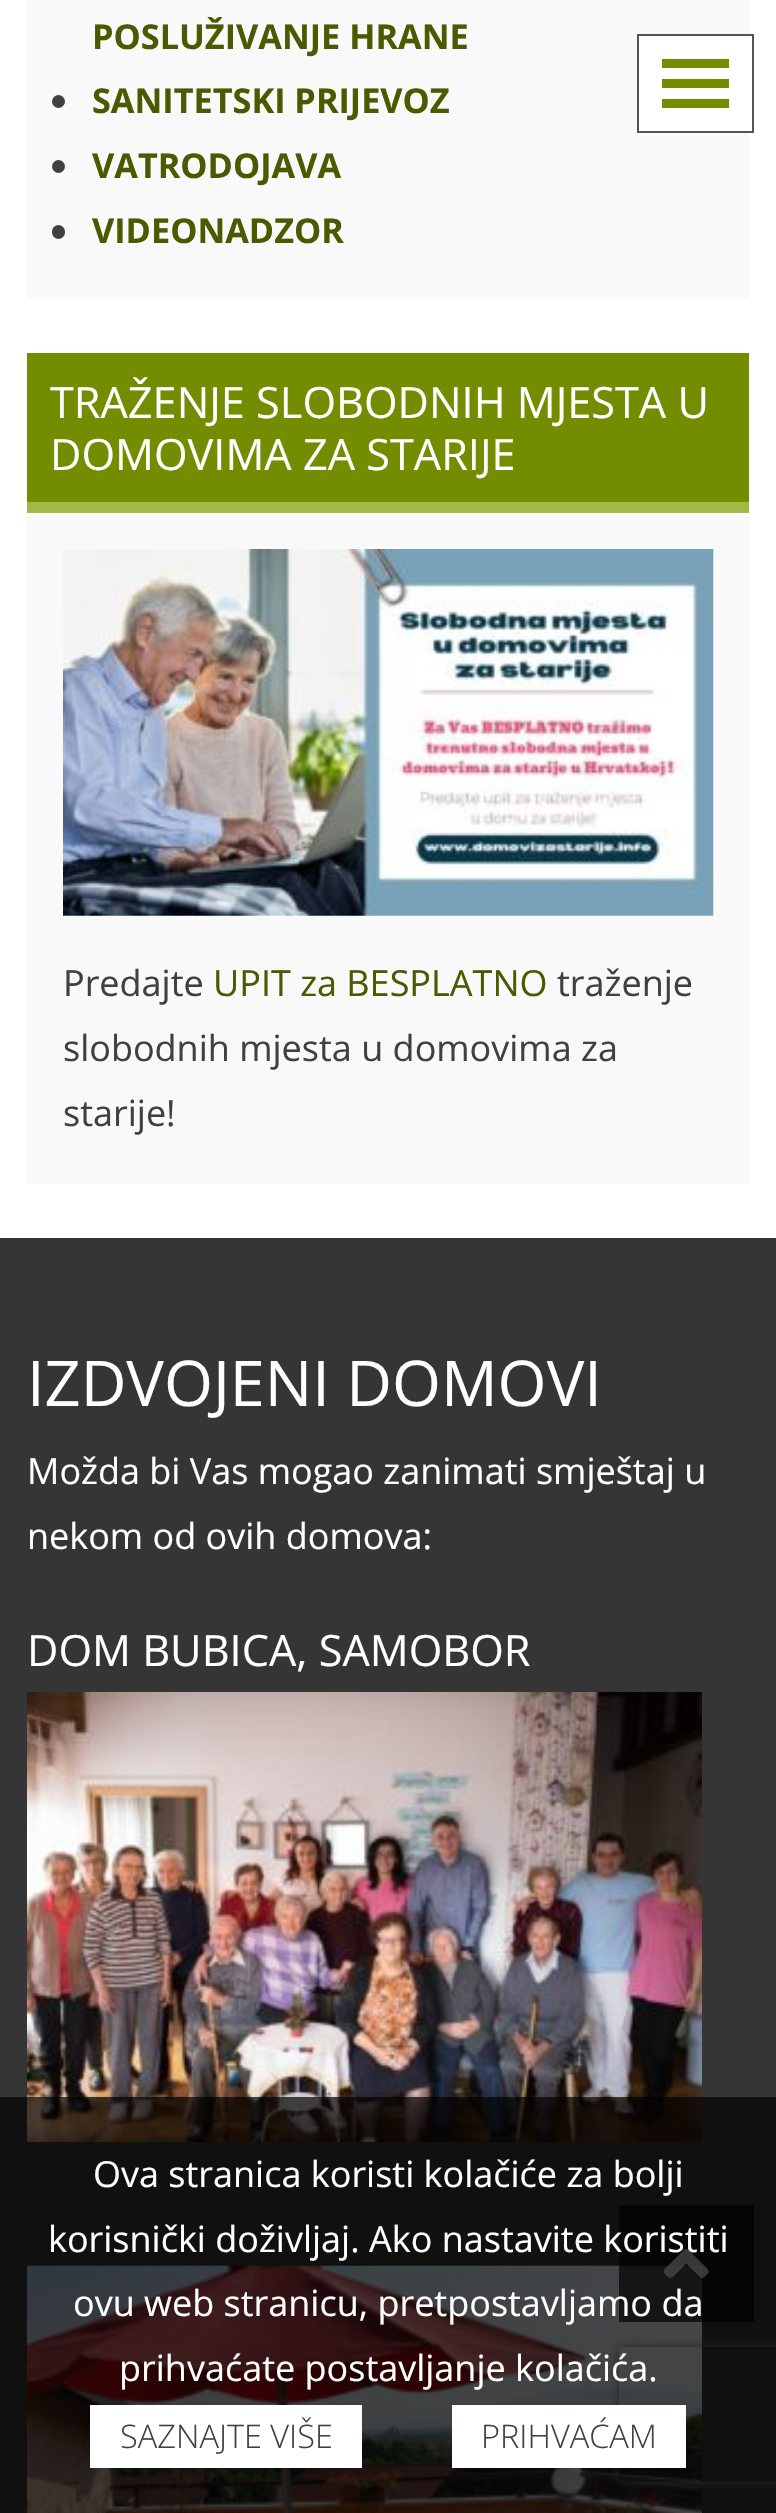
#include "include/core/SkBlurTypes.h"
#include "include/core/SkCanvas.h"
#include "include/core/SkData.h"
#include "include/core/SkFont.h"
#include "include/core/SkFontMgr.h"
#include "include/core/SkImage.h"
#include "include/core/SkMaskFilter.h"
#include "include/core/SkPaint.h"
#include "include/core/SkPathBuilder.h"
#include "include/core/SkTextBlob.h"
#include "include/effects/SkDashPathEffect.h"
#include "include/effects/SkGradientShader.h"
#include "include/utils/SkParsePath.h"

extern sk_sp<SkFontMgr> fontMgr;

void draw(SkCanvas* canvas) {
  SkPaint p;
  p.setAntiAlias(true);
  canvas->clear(SK_ColorWHITE);
  p.setColor(SkColorSetRGB(249, 249, 249));
  canvas->drawRect(SkRect::MakeLTRB(27, 0, 749, 299), p);
  p.setColor(SkColorSetRGB(64, 64, 64));
  canvas->drawCircle(58.5f, 101.5f, 6.5f, p);
  canvas->drawCircle(58.5f, 166.5f, 6.5f, p);
  canvas->drawRoundRect(SkRect::MakeLTRB(52, 225, 65, 239), 6.5f, 6.5f, p);
  p.setColor(SkColorSetRGB(249, 249, 249));
  canvas->drawRect(SkRect::MakeLTRB(27, 513, 749, 1184), p);
  p.setColor(SkColorSetRGB(114, 141, 0));
  canvas->drawRect(SkRect::MakeLTRB(27, 353, 749, 502), p);
  p.setColor(SkColorSetRGB(162, 185, 71));
  canvas->drawRect(SkRect::MakeLTRB(27, 502, 749, 513), p);
  canvas->drawImageRect(SkImages::DeferredFromEncodedData(SkData::MakeFromFileName("images/1.png")), SkRect::MakeLTRB(63, 549, 714, 916), SkSamplingOptions());
  p.setColor(SK_ColorWHITE);
  canvas->drawRect(SkRect::MakeLTRB(639, 36, 749, 131), p);
  p.setStyle(SkPaint::kStroke_Style);
  p.setStrokeWidth(2);
  p.setColor(SkColorSetRGB(85, 85, 85));
  canvas->drawRect(SkRect::MakeLTRB(638, 35, 753, 132), p);
  p.setStyle(SkPaint::kFill_Style);
  p.setColor(SkColorSetRGB(114, 141, 0));
  canvas->drawRect(SkRect::MakeLTRB(662, 59, 729, 68), p);
  canvas->drawRect(SkRect::MakeLTRB(662, 79, 729, 88), p);
  canvas->drawRect(SkRect::MakeLTRB(662, 99, 729, 108), p);
  p.setColor(SkColorSetRGB(53, 53, 53));
  canvas->drawRect(SkRect::MakeLTRB(0, 1238, 776, 2513), p);
  canvas->drawImageRect(SkImages::DeferredFromEncodedData(SkData::MakeFromFileName("images/2.png")), SkRect::MakeLTRB(27, 1692, 702, 2142), SkSamplingOptions());
  canvas->drawImageRect(SkImages::DeferredFromEncodedData(SkData::MakeFromFileName("images/3.png")), SkRect::MakeLTRB(27, 2265, 702, 2513), SkSamplingOptions());
  p.setColor(SkColorSetARGB(179, 0, 0, 0));
  canvas->drawRect(SkRect::MakeLTRB(619, 2205, 754, 2322), p);
  canvas->drawImageRect(SkImages::DeferredFromEncodedData(SkData::MakeFromFileName("images/4.png")), SkRect::MakeLTRB(663, 2249, 709, 2278), SkSamplingOptions());
  canvas->save();
  canvas->clipPath(SkPathBuilder(SkPathFillType::kEvenOdd).moveTo(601, 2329).lineTo(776, 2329).lineTo(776, 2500).lineTo(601, 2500).close().moveTo(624, 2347).lineTo(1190, 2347).cubicTo(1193, 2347, 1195, 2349, 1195, 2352).lineTo(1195, 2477).cubicTo(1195, 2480, 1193, 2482, 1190, 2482).lineTo(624, 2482).cubicTo(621, 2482, 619, 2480, 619, 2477).lineTo(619, 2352).cubicTo(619, 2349, 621, 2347, 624, 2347).close().detach(), true);
  p.setColor(SkColorSetRGB(128, 128, 128));
  p.setMaskFilter(SkMaskFilter::MakeBlur(kNormal_SkBlurStyle, 5.5f));
  canvas->drawRoundRect(SkRect::MakeLTRB(619, 2347, 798, 2482), 5, 5, p);
  p.setMaskFilter(nullptr);
  canvas->restore();
  p.setColor(SkColorSetARGB(179, 0, 0, 0));
  canvas->drawRect(SkRect::MakeLTRB(0, 2097, 776, 2513), p);
  p.setColor(SK_ColorWHITE);
  canvas->drawRect(SkRect::MakeLTRB(90, 2405, 362, 2468), p);
  canvas->drawRect(SkRect::MakeLTRB(452, 2405, 686, 2468), p);
  SkFont font1(fontMgr->matchFamilyStyle("Open Sans", SkFontStyle::Bold()), 34.25f);
  font1.setSubpixel(true);
  p.setColor(SkColorSetRGB(73, 90, 0));
  canvas->drawString("POSLUŽIVANJE HRANE", 92, 49, font1, p);
  canvas->drawString("SANITETSKI PRIJEVOZ", 92, 113, font1, p);
  canvas->drawString("VATRODOJAVA", 92, 178, font1, p);
  canvas->drawString("VIDEONADZOR", 92, 243, font1, p);
  SkFont font2(fontMgr->matchFamilyStyle("Open Sans", SkFontStyle::Normal()), 43.25f);
  font2.setSubpixel(true);
  p.setColor(SK_ColorWHITE);
  canvas->drawString("TRAŽENJE SLOBODNIH MJESTA U", 50, 418, font2, p);
  canvas->drawString("DOMOVIMA ZA STARIJE", 50, 470, font2, p);
  SkFont font3(fontMgr->matchFamilyStyle("Open Sans", SkFontStyle::Normal()), 36);
  font3.setSubpixel(true);
  p.setColor(SkColorSetRGB(64, 64, 64));
  canvas->drawString("Predajte", 63, 996, font3, p);
  p.setColor(SkColorSetRGB(73, 90, 0));
  canvas->drawString("UPIT za BESPLATNO", 213, 996, font3, p);
  p.setColor(SkColorSetRGB(64, 64, 64));
  canvas->drawString("traženje", 557, 996, font3, p);
  canvas->drawString("slobodnih mjesta u domovima za", 63, 1061, font3, p);
  canvas->drawString("starije!", 63, 1126, font3, p);
  SkFont font4(fontMgr->matchFamilyStyle("Open Sans", SkFontStyle::Normal()), 63);
  font4.setSubpixel(true);
  p.setColor(SK_ColorWHITE);
  canvas->drawString("IZDVOJENI DOMOVI", 27, 1406, font4, p);
  canvas->drawString("Možda bi Vas mogao zanimati smještaj u", 27, 1484, font3, p);
  canvas->drawString("nekom od ovih domova:", 27, 1549, font3, p);
  canvas->drawString("DOM BUBICA, SAMOBOR", 27, 1666, font2, p);
  canvas->drawString("Ova stranica koristi kolačiće za bolji", 93, 2187, font3, p);
  canvas->drawString("korisnički doživljaj. Ako nastavite koristiti", 48, 2252, font3, p);
  canvas->drawString("ovu web stranicu, pretpostavljamo da", 73, 2316, font3, p);
  canvas->drawString("prihvaćate postavljanje kolačića.", 119, 2381, font3, p);
  SkFont font5(fontMgr->matchFamilyStyle("Open Sans", SkFontStyle(300, SkFontStyle::kNormal_Width, SkFontStyle::kUpright_Slant)), 32.5f);
  font5.setSubpixel(true);
  p.setColor(SkColorSetRGB(64, 64, 64));
  canvas->drawString("SAZNAJTE VIŠE", 120, 2448, font5, p);
  canvas->drawString("PRIHVAĆAM", 481, 2448, font5, p);
}
